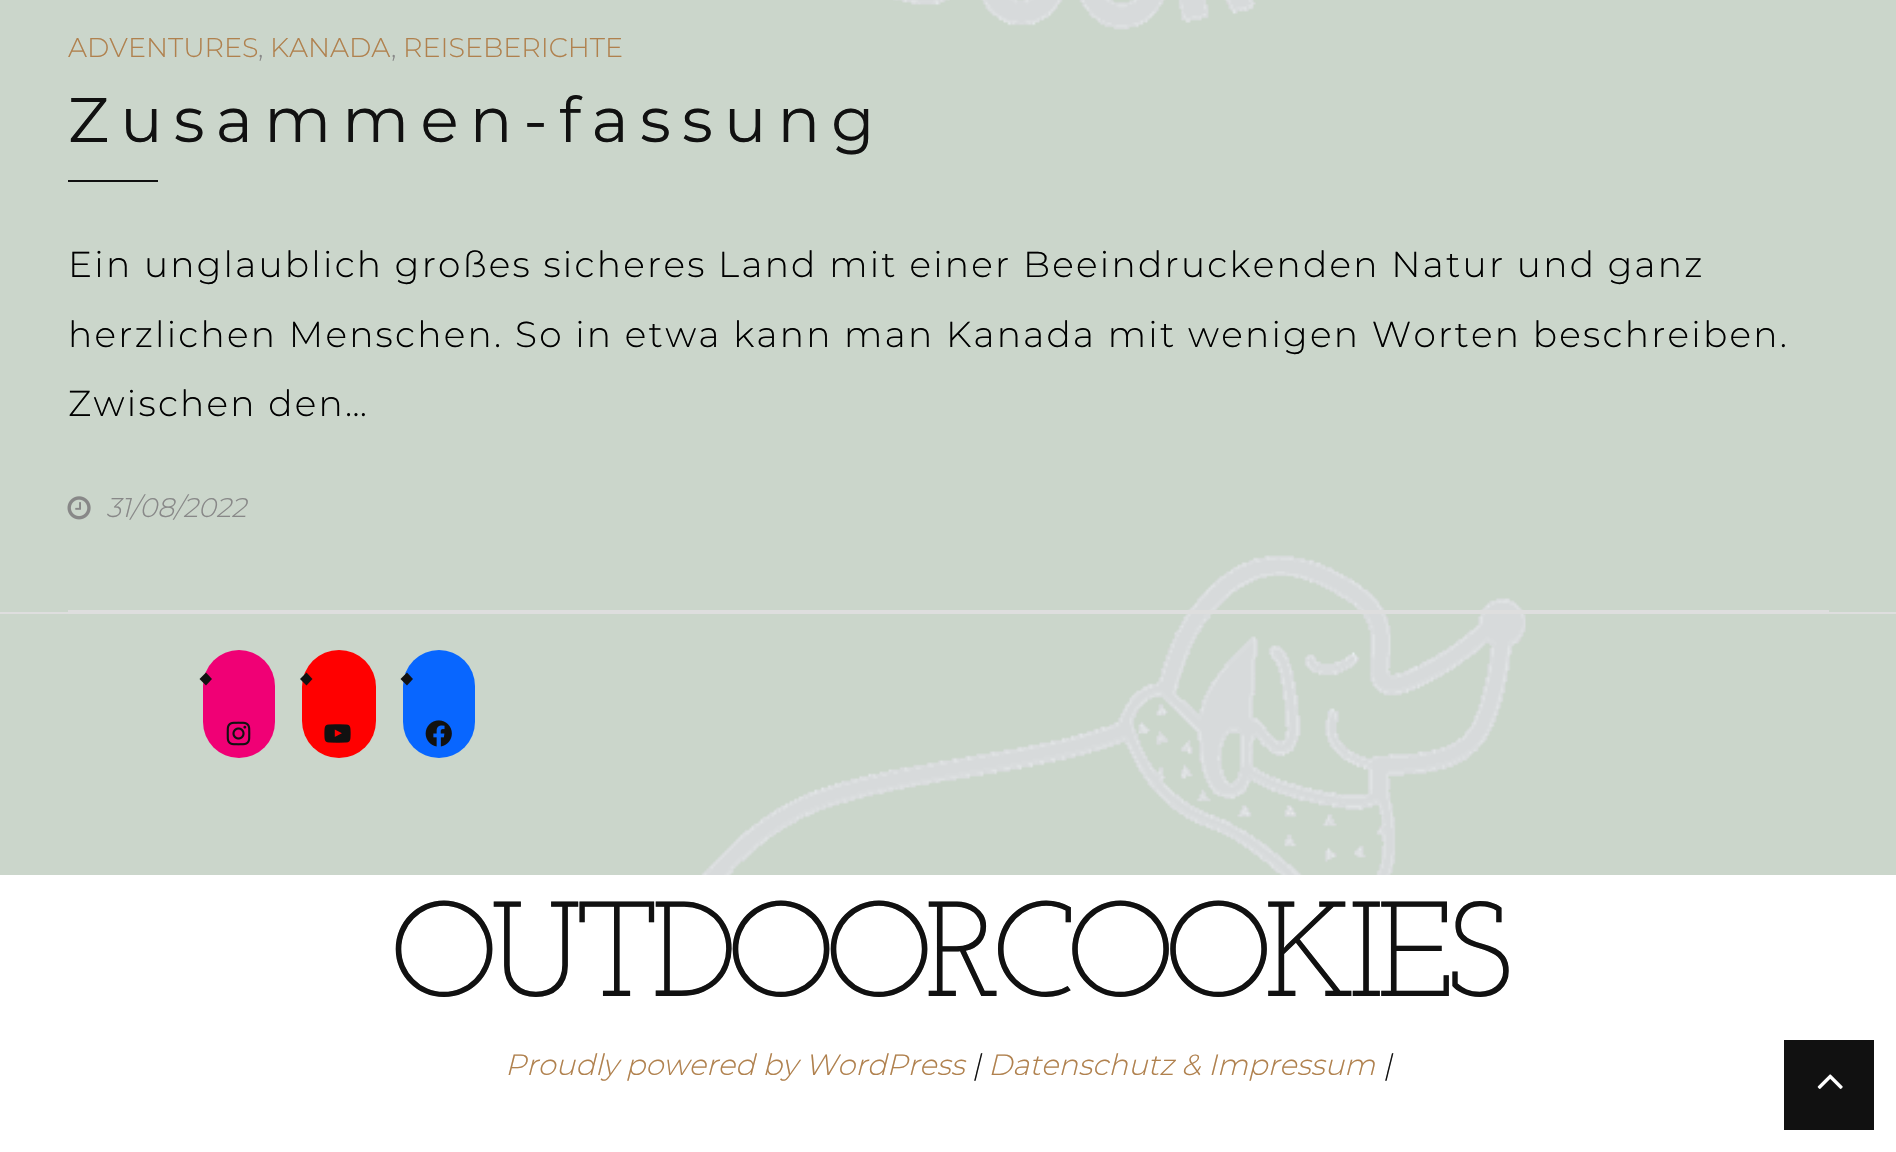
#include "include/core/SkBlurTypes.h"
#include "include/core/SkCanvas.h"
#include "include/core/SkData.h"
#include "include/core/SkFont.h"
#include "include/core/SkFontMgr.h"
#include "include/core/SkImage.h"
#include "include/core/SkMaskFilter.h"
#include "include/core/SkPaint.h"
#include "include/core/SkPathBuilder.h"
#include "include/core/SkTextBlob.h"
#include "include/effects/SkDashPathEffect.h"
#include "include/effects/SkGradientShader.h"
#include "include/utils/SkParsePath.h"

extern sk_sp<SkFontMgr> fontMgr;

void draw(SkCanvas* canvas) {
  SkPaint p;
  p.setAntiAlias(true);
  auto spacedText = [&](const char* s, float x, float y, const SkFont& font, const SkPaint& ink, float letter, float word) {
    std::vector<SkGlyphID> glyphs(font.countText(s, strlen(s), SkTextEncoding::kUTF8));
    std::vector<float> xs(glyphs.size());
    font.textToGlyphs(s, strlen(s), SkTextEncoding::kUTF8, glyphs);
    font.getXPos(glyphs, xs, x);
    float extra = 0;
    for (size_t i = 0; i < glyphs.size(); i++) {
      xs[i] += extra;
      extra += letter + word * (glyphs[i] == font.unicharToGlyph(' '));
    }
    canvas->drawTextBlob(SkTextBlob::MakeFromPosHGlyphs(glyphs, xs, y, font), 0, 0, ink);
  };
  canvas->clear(SkColorSetRGB(203, 214, 203));
  canvas->drawImageRect(SkImages::DeferredFromEncodedData(SkData::MakeFromFileName("images/1.png")), SkRect::MakeLTRB(701, 0, 1526, 875), SkSamplingOptions());
  p.setColor(SkColorSetRGB(222, 222, 222));
  canvas->drawRect(SkRect::MakeLTRB(68, 610, 1829, 612), p);
  p.setColor(SkColorSetRGB(17, 17, 17));
  canvas->drawRect(SkRect::MakeLTRB(68, 180, 158, 182), p);
  canvas->drawImageRect(SkImages::DeferredFromEncodedData(SkData::MakeFromFileName("images/2.png")), SkRect::MakeLTRB(67, 496, 91, 520), SkSamplingOptions());
  p.setColor(SkColorSetRGB(222, 222, 222));
  canvas->drawRect(SkRect::MakeLTRB(0, 612, 1896, 614), p);
  p.setColor(SkColorSetRGB(240, 0, 117));
  canvas->drawRoundRect(SkRect::MakeLTRB(203, 650, 275, 758), 36, 36, p);
  p.setColor(SkColorSetRGB(17, 17, 17));
  canvas->drawPath(SkPathBuilder().moveTo(206, 672.5f).lineTo(212, 679).lineTo(206, 685.5f).lineTo(199.5f, 679).close().detach(), p);
  canvas->drawImageRect(SkImages::DeferredFromEncodedData(SkData::MakeFromFileName("images/3.png")), SkRect::MakeLTRB(226, 721, 251, 746), SkSamplingOptions());
  p.setColor(SkColorSetRGB(255, 0, 0));
  canvas->drawRoundRect(SkRect::MakeLTRB(302, 650, 376, 758), 37, 37, p);
  p.setColor(SkColorSetRGB(17, 17, 17));
  canvas->drawPath(SkPathBuilder().moveTo(306.5f, 672.5f).lineTo(312.5f, 679).lineTo(306.5f, 685.5f).lineTo(300, 679).close().detach(), p);
  canvas->drawImageRect(SkImages::DeferredFromEncodedData(SkData::MakeFromFileName("images/4.png")), SkRect::MakeLTRB(324, 724, 351, 743), SkSamplingOptions());
  p.setColor(SkColorSetRGB(8, 102, 255));
  canvas->drawRoundRect(SkRect::MakeLTRB(403, 650, 475, 758), 36, 36, p);
  p.setColor(SkColorSetRGB(17, 17, 17));
  canvas->drawPath(SkPathBuilder().moveTo(407, 672.5f).lineTo(413, 679).lineTo(407, 685.5f).lineTo(400.5f, 679).close().detach(), p);
  canvas->drawImageRect(SkImages::DeferredFromEncodedData(SkData::MakeFromFileName("images/5.png")), SkRect::MakeLTRB(425, 720, 452, 747), SkSamplingOptions());
  p.setColor(SK_ColorWHITE);
  canvas->drawRect(SkRect::MakeLTRB(0, 875, 1896, 1152), p);
  p.setColor(SkColorSetRGB(17, 17, 17));
  canvas->drawRect(SkRect::MakeLTRB(1784, 1040, 1874, 1130), p);
  canvas->drawImageRect(SkImages::DeferredFromEncodedData(SkData::MakeFromFileName("images/6.png")), SkRect::MakeLTRB(1817, 1074, 1843, 1089), SkSamplingOptions());
  SkFont font1(fontMgr->matchFamilyStyle("Montserrat", SkFontStyle(300, SkFontStyle::kNormal_Width, SkFontStyle::kUpright_Slant)), 27);
  font1.setSubpixel(true);
  p.setColor(SkColorSetRGB(176, 129, 78));
  canvas->drawString("ADVENTURES", 68, 57, font1, p);
  p.setColor(SkColorSetRGB(136, 136, 136));
  canvas->drawString(",", 258, 57, font1, p);
  p.setColor(SkColorSetRGB(176, 129, 78));
  canvas->drawString("KANADA", 270, 57, font1, p);
  p.setColor(SkColorSetRGB(136, 136, 136));
  canvas->drawString(",", 391, 57, font1, p);
  p.setColor(SkColorSetRGB(176, 129, 78));
  canvas->drawString("REISEBERICHTE", 403, 57, font1, p);
  SkFont font2(fontMgr->matchFamilyStyle("Montserrat", SkFontStyle::Normal()), 63);
  font2.setSubpixel(true);
  p.setColor(SkColorSetRGB(17, 17, 17));
  spacedText("Zusammen-fassung", 68, 142, font2, p, 11.25f, 0);
  SkFont font3(fontMgr->matchFamilyStyle("Montserrat", SkFontStyle(300, SkFontStyle::kNormal_Width, SkFontStyle::kUpright_Slant)), 36);
  font3.setSubpixel(true);
  p.setColor(SK_ColorBLACK);
  spacedText("Ein unglaublich großes sicheres Land mit einer Beeindruckenden Natur und ganz", 68, 277, font3, p, 2.25f, 0);
  spacedText("herzlichen Menschen. So in etwa kann man Kanada mit wenigen Worten beschreiben.", 68, 347, font3, p, 2.25f, 0);
  spacedText("Zwischen den…", 68, 416, font3, p, 2.25f, 0);
  SkFont font4(fontMgr->matchFamilyStyle("Montserrat", SkFontStyle(300, SkFontStyle::kNormal_Width, SkFontStyle::kItalic_Slant)), 27);
  font4.setSubpixel(true);
  p.setColor(SkColorSetRGB(136, 136, 136));
  canvas->drawString("31/08/2022", 106, 517, font4, p);
  SkFont font5(fontMgr->matchFamilyStyle("Josefin Slab", SkFontStyle(100, SkFontStyle::kNormal_Width, SkFontStyle::kUpright_Slant)), 135);
  font5.setSubpixel(true);
  p.setColor(SkColorSetRGB(17, 17, 17));
  spacedText("OUTDOORCOOKIES", 391, 996, font5, p, -8.1f, 0);
  SkFont font6(fontMgr->matchFamilyStyle("Montserrat", SkFontStyle(300, SkFontStyle::kNormal_Width, SkFontStyle::kItalic_Slant)), 29.25f);
  font6.setSubpixel(true);
  p.setColor(SkColorSetRGB(176, 129, 78));
  canvas->drawString("Proudly powered by WordPress", 505, 1075, font6, p);
  p.setColor(SkColorSetRGB(17, 17, 17));
  canvas->drawString("|", 972, 1075, font6, p);
  p.setColor(SkColorSetRGB(176, 129, 78));
  canvas->drawString("Datenschutz & Impressum", 988, 1075, font6, p);
  p.setColor(SkColorSetRGB(17, 17, 17));
  canvas->drawString("|", 1383, 1075, font6, p);
}
